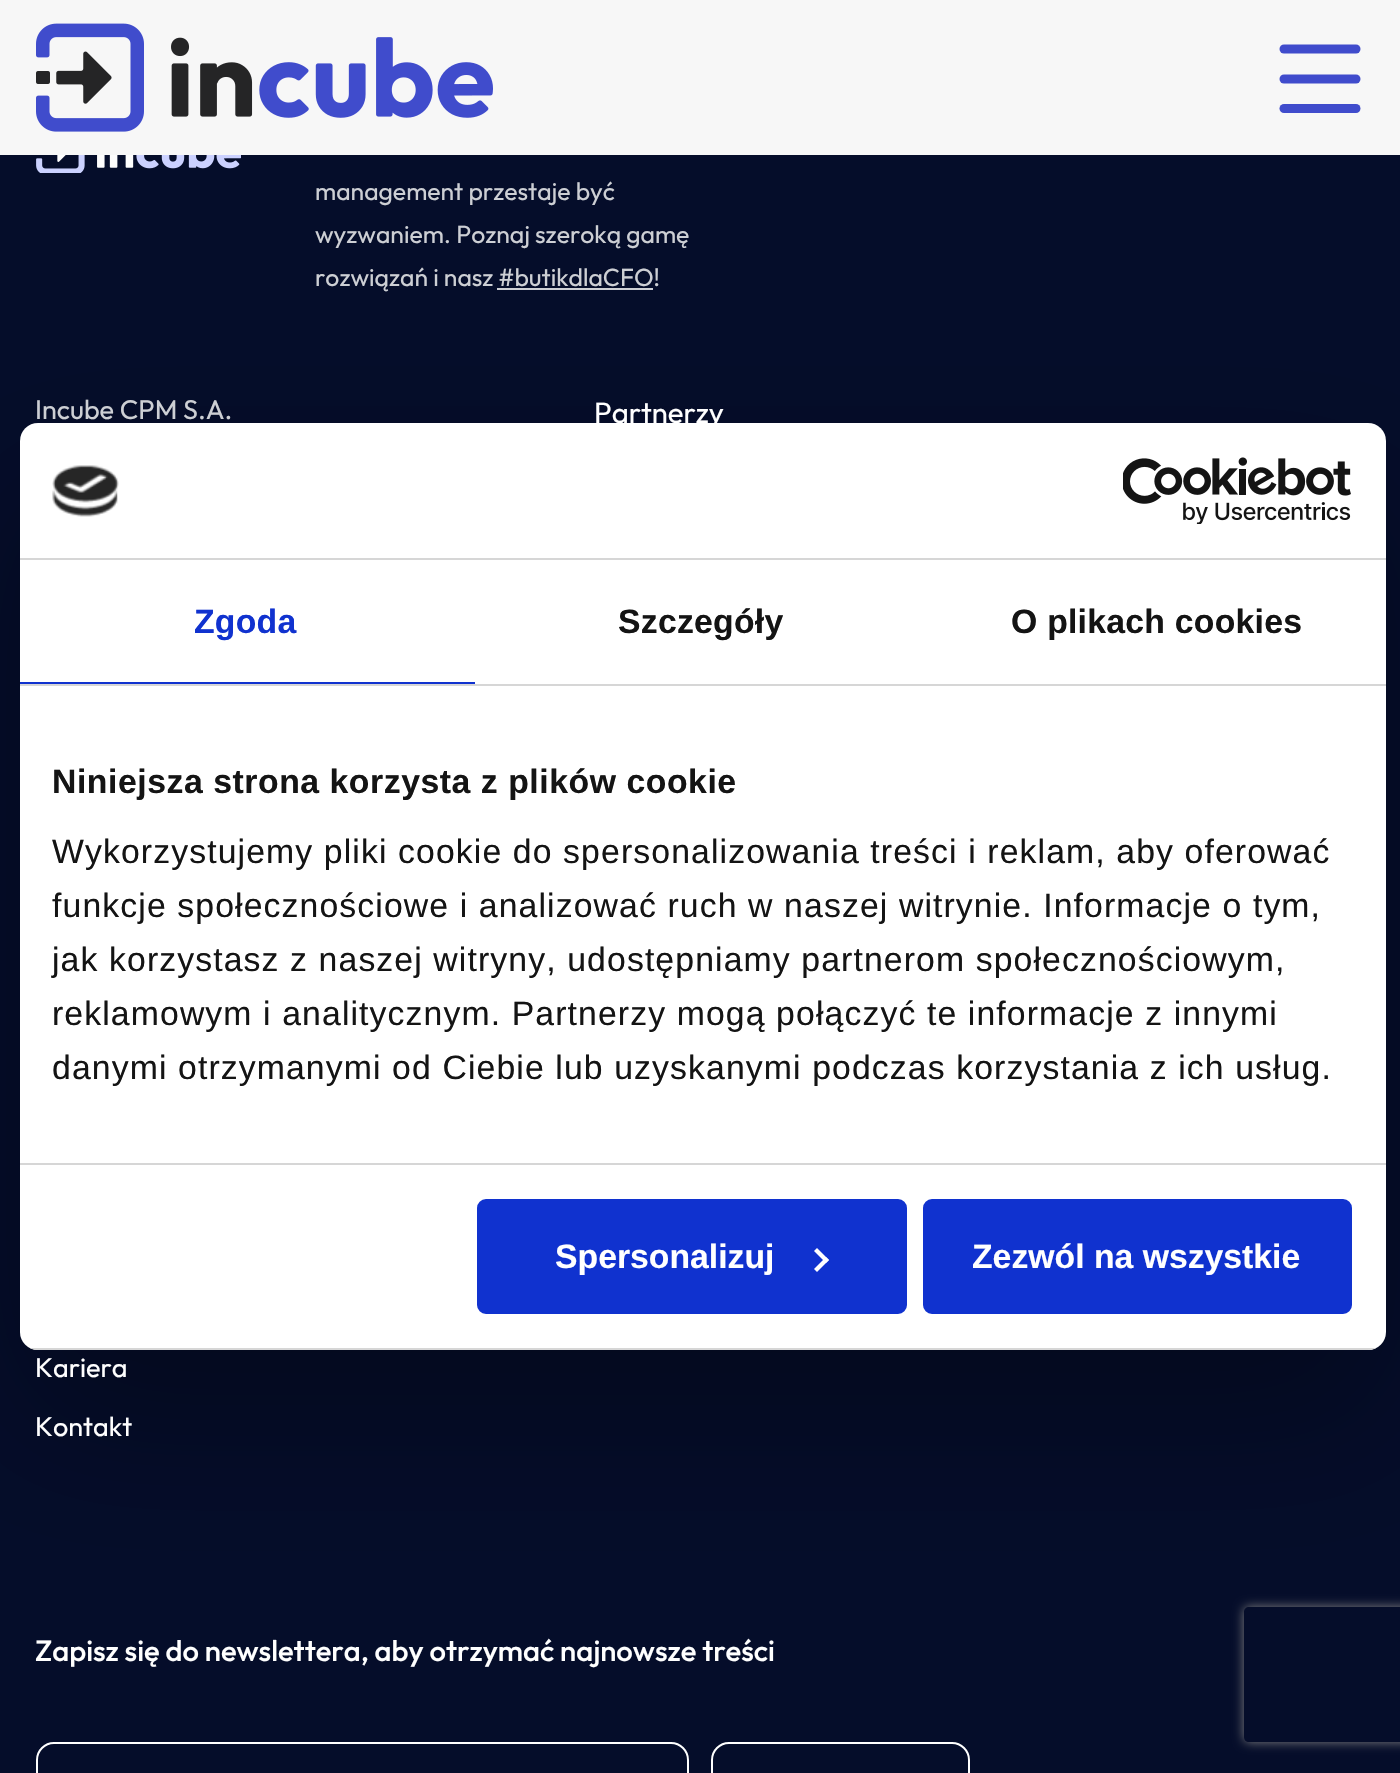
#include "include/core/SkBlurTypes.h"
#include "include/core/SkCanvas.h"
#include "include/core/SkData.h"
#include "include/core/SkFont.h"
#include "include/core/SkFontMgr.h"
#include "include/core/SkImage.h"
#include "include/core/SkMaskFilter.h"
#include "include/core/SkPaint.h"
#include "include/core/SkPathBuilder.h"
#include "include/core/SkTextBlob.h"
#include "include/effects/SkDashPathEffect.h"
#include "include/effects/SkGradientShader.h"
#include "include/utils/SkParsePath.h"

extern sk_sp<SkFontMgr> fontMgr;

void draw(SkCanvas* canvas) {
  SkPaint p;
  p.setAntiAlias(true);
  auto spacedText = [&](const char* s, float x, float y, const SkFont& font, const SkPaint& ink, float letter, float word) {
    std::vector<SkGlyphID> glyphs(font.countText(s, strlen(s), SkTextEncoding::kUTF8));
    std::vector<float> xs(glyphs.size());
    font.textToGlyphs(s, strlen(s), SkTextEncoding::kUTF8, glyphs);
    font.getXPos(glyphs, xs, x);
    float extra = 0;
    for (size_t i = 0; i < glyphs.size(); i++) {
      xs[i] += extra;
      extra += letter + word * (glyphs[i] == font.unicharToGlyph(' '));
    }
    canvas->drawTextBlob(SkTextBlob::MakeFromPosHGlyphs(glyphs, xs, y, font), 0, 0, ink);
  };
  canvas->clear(SkColorSetRGB(5, 13, 42));
  p.setColor(SkColorSetRGB(247, 247, 247));
  canvas->drawRect(SkRect::MakeLTRB(0, 0, 1400, 155), p);
  canvas->drawImageRect(SkImages::DeferredFromEncodedData(SkData::MakeFromFileName("images/1.png")), SkRect::MakeLTRB(36, 23, 493, 132), SkSamplingOptions());
  p.setStyle(SkPaint::kStroke_Style);
  p.setStrokeWidth(9);
  p.setStrokeCap(SkPaint::kRound_Cap);
  p.setStrokeJoin(SkPaint::kRound_Join);
  p.setColor(SkColorSetRGB(64, 76, 204));
  canvas->drawPath(SkPathBuilder().moveTo(1284, 49).lineTo(1356, 49).detach(), p);
  canvas->drawPath(SkPathBuilder().moveTo(1284, 79).lineTo(1356, 79).detach(), p);
  canvas->drawPath(SkPathBuilder().moveTo(1284, 108.5f).lineTo(1356, 108.5f).detach(), p);
  canvas->drawImageRect(SkImages::DeferredFromEncodedData(SkData::MakeFromFileName("images/2.png")), SkRect::MakeLTRB(36, 155, 241, 173), SkSamplingOptions());
  p.setStyle(SkPaint::kFill_Style);
  p.setColor(SkColorSetRGB(205, 207, 212));
  canvas->drawRect(SkRect::MakeLTRB(497, 288, 653, 290), p);
  p.setStyle(SkPaint::kStroke_Style);
  p.setStrokeWidth(2);
  p.setStrokeCap(SkPaint::kButt_Cap);
  p.setStrokeJoin(SkPaint::kMiter_Join);
  p.setColor(SK_ColorWHITE);
  canvas->drawRoundRect(SkRect::MakeLTRB(37, 1743, 688, 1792), 17, 17, p);
  canvas->drawRoundRect(SkRect::MakeLTRB(712, 1743, 969, 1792), 17, 17, p);
  p.setStyle(SkPaint::kFill_Style);
  p.setColor(SkColorSetARGB(77, 0, 0, 0));
  p.setMaskFilter(SkMaskFilter::MakeBlur(kNormal_SkBlurStyle, 76.5f));
  canvas->drawRoundRect(SkRect::MakeLTRB(20, 495, 1386, 1422), 18, 18, p);
  p.setMaskFilter(nullptr);
  p.setColor(SK_ColorWHITE);
  canvas->drawRoundRect(SkRect::MakeLTRB(20, 423, 1386, 1350), 18, 18, p);
  p.setColor(SkColorSetRGB(214, 214, 214));
  canvas->drawRect(SkRect::MakeLTRB(20, 558, 1386, 560), p);
  canvas->drawImageRect(SkImages::DeferredFromEncodedData(SkData::MakeFromFileName("images/3.png")), SkRect::MakeLTRB(52, 465, 119, 517), SkSamplingOptions());
  canvas->drawImageRect(SkImages::DeferredFromEncodedData(SkData::MakeFromFileName("images/4.png")), SkRect::MakeLTRB(1123, 457, 1351, 524), SkSamplingOptions());
  canvas->drawRect(SkRect::MakeLTRB(20, 684, 1386, 686), p);
  p.setColor(SkColorSetRGB(16, 50, 207));
  canvas->drawRect(SkRect::MakeLTRB(20, 682, 475, 684), p);
  p.setColor(SkColorSetRGB(214, 214, 214));
  canvas->drawRect(SkRect::MakeLTRB(20, 1163, 1386, 1165), p);
  canvas->save();
  canvas->clipPath(SkPathBuilder().moveTo(38, 423).lineTo(1368, 423).cubicTo(1378, 423, 1386, 431, 1386, 441).lineTo(1386, 1332).cubicTo(1386, 1342, 1378, 1350, 1368, 1350).lineTo(38, 1350).cubicTo(28, 1350, 20, 1342, 20, 1332).lineTo(20, 441).cubicTo(20, 431, 28, 423, 38, 423).close().detach(), true);
  canvas->drawRect(SkRect::MakeLTRB(30, 1348, 1376, 1350), p);
  canvas->restore();
  p.setColor(SkColorSetRGB(16, 50, 207));
  canvas->drawRoundRect(SkRect::MakeLTRB(479.5f, 1201.5f, 904.5f, 1311.5f), 6.5f, 6.5f, p);
  p.setStyle(SkPaint::kStroke_Style);
  p.setStrokeWidth(5);
  canvas->drawRoundRect(SkRect::MakeLTRB(479.5f, 1201.5f, 904.5f, 1311.5f), 6.5f, 6.5f, p);
  p.setStyle(SkPaint::kFill_Style);
  p.setColor(SK_ColorWHITE);
  canvas->drawPath(SkPathBuilder().moveTo(817, 1248).lineTo(829, 1260).lineTo(826, 1263).lineTo(814, 1251).close().detach(), p);
  canvas->drawPath(SkPathBuilder().moveTo(826, 1257).lineTo(829, 1260).lineTo(817, 1272).lineTo(814, 1269).close().detach(), p);
  p.setColor(SkColorSetRGB(16, 50, 207));
  canvas->drawRoundRect(SkRect::MakeLTRB(925.5f, 1201.5f, 1349.5f, 1311.5f), 6.5f, 6.5f, p);
  p.setStyle(SkPaint::kStroke_Style);
  canvas->drawRoundRect(SkRect::MakeLTRB(925.5f, 1201.5f, 1349.5f, 1311.5f), 6.5f, 6.5f, p);
  canvas->save();
  canvas->clipPath(SkPathBuilder(SkPathFillType::kEvenOdd).moveTo(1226, 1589).lineTo(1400, 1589).lineTo(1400, 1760).lineTo(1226, 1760).close().moveTo(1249, 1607).lineTo(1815, 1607).cubicTo(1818, 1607, 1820, 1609, 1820, 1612).lineTo(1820, 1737).cubicTo(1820, 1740, 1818, 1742, 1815, 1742).lineTo(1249, 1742).cubicTo(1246, 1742, 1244, 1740, 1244, 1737).lineTo(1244, 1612).cubicTo(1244, 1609, 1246, 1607, 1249, 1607).close().detach(), true);
  p.setStyle(SkPaint::kFill_Style);
  p.setColor(SkColorSetRGB(128, 128, 128));
  p.setMaskFilter(SkMaskFilter::MakeBlur(kNormal_SkBlurStyle, 5.5f));
  canvas->drawRoundRect(SkRect::MakeLTRB(1244, 1607, 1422, 1742), 5, 5, p);
  p.setMaskFilter(nullptr);
  canvas->restore();
  SkFont font1(fontMgr->matchFamilyStyle("Outfit", SkFontStyle::Normal()), 24.75f);
  font1.setSubpixel(true);
  p.setColor(SkColorSetRGB(205, 207, 212));
  canvas->drawString("management przestaje być", 315, 200, font1, p);
  canvas->drawString("wyzwaniem. Poznaj szeroką gamę", 315, 243, font1, p);
  canvas->drawString("rozwiązań i nasz #butikdlaCFO!", 315, 286, font1, p);
  SkFont font2(fontMgr->matchFamilyStyle("Outfit", SkFontStyle::Normal()), 27);
  font2.setSubpixel(true);
  canvas->drawString("Incube CPM S.A.", 35, 419, font2, p);
  SkFont font3(fontMgr->matchFamilyStyle("Outfit", SkFontStyle::Normal()), 29.25f);
  font3.setSubpixel(true);
  p.setColor(SK_ColorWHITE);
  canvas->drawString("Partnerzy", 594, 423, font3, p);
  canvas->drawString("Kariera", 35, 1377, font2, p);
  canvas->drawString("Kontakt", 35, 1436, font2, p);
  SkFont font4(fontMgr->matchFamilyStyle("Outfit", SkFontStyle(500, SkFontStyle::kNormal_Width, SkFontStyle::kUpright_Slant)), 29.25f);
  font4.setSubpixel(true);
  canvas->drawString("Zapisz się do newslettera, aby otrzymać najnowsze treści", 35, 1661, font4, p);
  SkFont font5(fontMgr->matchFamilyStyle("Liberation Sans", SkFontStyle::Bold()), 33.75f);
  font5.setSubpixel(true);
  p.setColor(SkColorSetRGB(16, 50, 207));
  spacedText("Zgoda", 194, 633, font5, p, 0.25f, 0);
  p.setColor(SkColorSetRGB(20, 20, 20));
  spacedText("Szczegóły", 618, 633, font5, p, 0.25f, 0);
  spacedText("O plikach cookies", 1011, 633, font5, p, 0.25f, 0);
  spacedText("Niniejsza strona korzysta z plików cookie", 52, 793, font5, p, 0.55f, 0);
  SkFont font6(fontMgr->matchFamilyStyle("Liberation Sans", SkFontStyle::Normal()), 33.75f);
  font6.setSubpixel(true);
  spacedText("Wykorzystujemy pliki cookie do spersonalizowania treści i reklam, aby oferować", 52, 863, font6, p, 1.12f, 0);
  spacedText("funkcje społecznościowe i analizować ruch w naszej witrynie. Informacje o tym,", 52, 917, font6, p, 1.12f, 0);
  spacedText("jak korzystasz z naszej witryny, udostępniamy partnerom społecznościowym,", 52, 971, font6, p, 1.12f, 0);
  spacedText("reklamowym i analitycznym. Partnerzy mogą połączyć te informacje z innymi", 52, 1025, font6, p, 1.12f, 0);
  spacedText("danymi otrzymanymi od Ciebie lub uzyskanymi podczas korzystania z ich usług.", 52, 1079, font6, p, 1.12f, 0);
  p.setColor(SK_ColorWHITE);
  canvas->drawString("Spersonalizuj", 555, 1268, font5, p);
  canvas->drawString("Zezwól na wszystkie", 972, 1268, font5, p);
}
